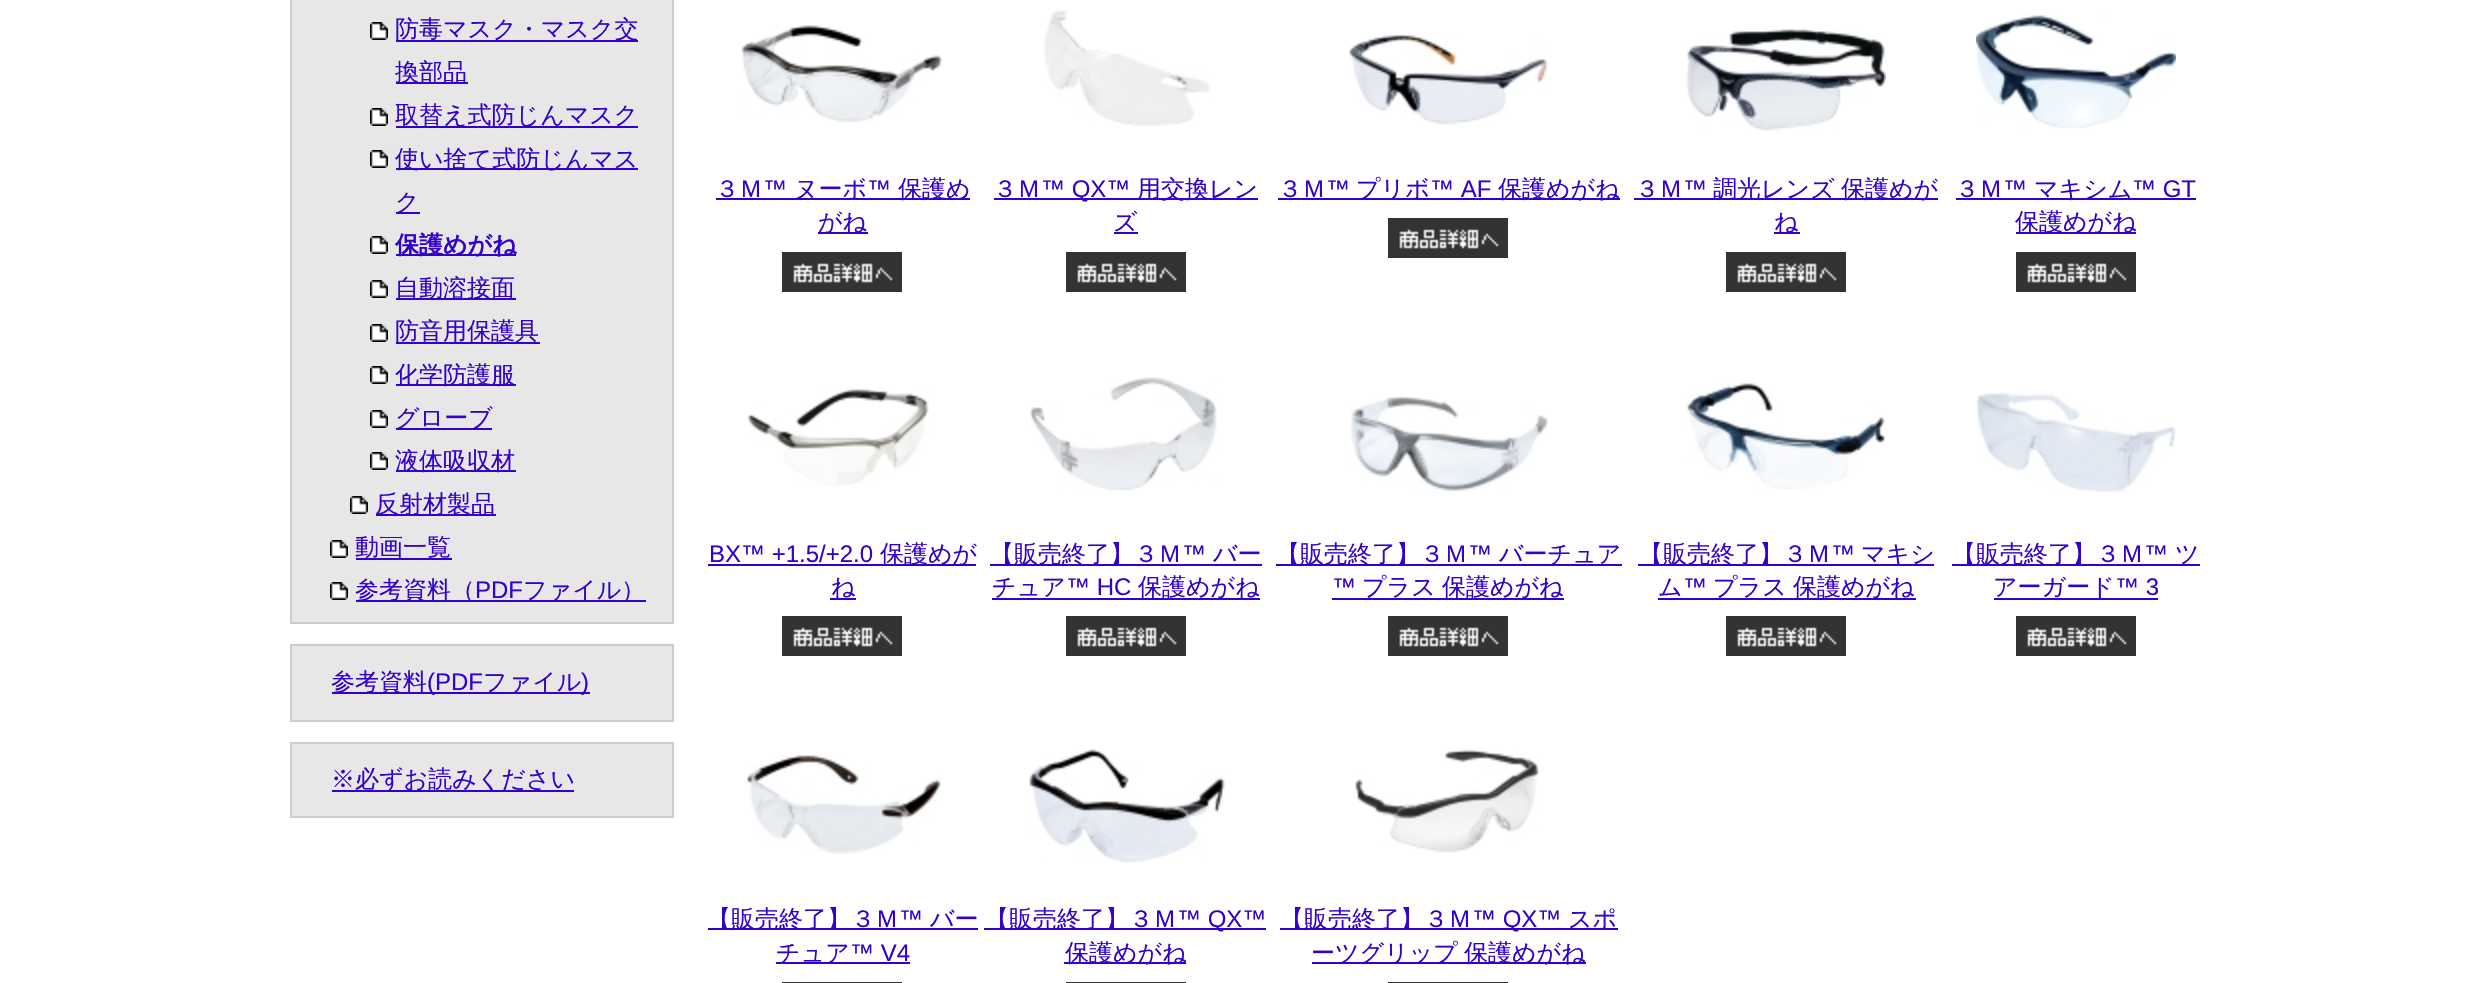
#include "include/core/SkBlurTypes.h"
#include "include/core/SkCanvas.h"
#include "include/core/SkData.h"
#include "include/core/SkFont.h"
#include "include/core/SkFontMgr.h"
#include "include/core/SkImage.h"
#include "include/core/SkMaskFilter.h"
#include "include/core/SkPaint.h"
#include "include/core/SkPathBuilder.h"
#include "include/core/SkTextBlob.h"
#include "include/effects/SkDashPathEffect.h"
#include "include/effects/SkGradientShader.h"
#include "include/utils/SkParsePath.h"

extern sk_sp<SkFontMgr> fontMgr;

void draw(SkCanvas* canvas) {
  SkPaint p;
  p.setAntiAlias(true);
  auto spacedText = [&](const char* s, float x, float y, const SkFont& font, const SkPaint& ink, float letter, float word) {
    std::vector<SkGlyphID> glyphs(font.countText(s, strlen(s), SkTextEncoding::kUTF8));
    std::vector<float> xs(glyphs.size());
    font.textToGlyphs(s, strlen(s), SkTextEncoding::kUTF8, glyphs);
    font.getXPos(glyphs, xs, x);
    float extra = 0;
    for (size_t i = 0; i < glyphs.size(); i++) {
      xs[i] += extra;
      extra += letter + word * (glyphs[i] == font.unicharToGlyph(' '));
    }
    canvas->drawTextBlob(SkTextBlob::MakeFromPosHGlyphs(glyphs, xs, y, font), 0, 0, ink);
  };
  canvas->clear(SK_ColorWHITE);
  p.setColor(SkColorSetRGB(231, 231, 231));
  canvas->drawRect(SkRect::MakeLTRB(291, -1, 673, 623), p);
  p.setStyle(SkPaint::kStroke_Style);
  p.setStrokeWidth(2);
  p.setColor(SkColorSetRGB(204, 204, 204));
  canvas->drawRect(SkRect::MakeLTRB(291, -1, 673, 623), p);
  canvas->drawImageRect(SkImages::DeferredFromEncodedData(SkData::MakeFromFileName("images/1.png")), SkRect::MakeLTRB(370, 22, 388, 40), SkSamplingOptions());
  p.setStyle(SkPaint::kFill_Style);
  p.setColor(SkColorSetRGB(51, 0, 204));
  canvas->drawRect(SkRect::MakeLTRB(396, 40, 638, 42), p);
  canvas->drawRect(SkRect::MakeLTRB(396, 82, 468, 84), p);
  canvas->drawImageRect(SkImages::DeferredFromEncodedData(SkData::MakeFromFileName("images/1.png")), SkRect::MakeLTRB(370, 108, 388, 126), SkSamplingOptions());
  canvas->drawRect(SkRect::MakeLTRB(396, 126, 638, 128), p);
  canvas->drawImageRect(SkImages::DeferredFromEncodedData(SkData::MakeFromFileName("images/1.png")), SkRect::MakeLTRB(370, 150, 388, 168), SkSamplingOptions());
  canvas->drawRect(SkRect::MakeLTRB(396, 168, 638, 170), p);
  canvas->drawRect(SkRect::MakeLTRB(396, 212, 420, 214), p);
  canvas->drawImageRect(SkImages::DeferredFromEncodedData(SkData::MakeFromFileName("images/1.png")), SkRect::MakeLTRB(370, 236, 388, 254), SkSamplingOptions());
  canvas->drawRect(SkRect::MakeLTRB(396, 254, 516, 256), p);
  canvas->drawImageRect(SkImages::DeferredFromEncodedData(SkData::MakeFromFileName("images/1.png")), SkRect::MakeLTRB(370, 280, 388, 298), SkSamplingOptions());
  canvas->drawRect(SkRect::MakeLTRB(396, 298, 516, 300), p);
  canvas->drawImageRect(SkImages::DeferredFromEncodedData(SkData::MakeFromFileName("images/1.png")), SkRect::MakeLTRB(370, 324, 388, 342), SkSamplingOptions());
  canvas->drawRect(SkRect::MakeLTRB(396, 342, 540, 344), p);
  canvas->drawImageRect(SkImages::DeferredFromEncodedData(SkData::MakeFromFileName("images/1.png")), SkRect::MakeLTRB(370, 366, 388, 384), SkSamplingOptions());
  canvas->drawRect(SkRect::MakeLTRB(396, 384, 516, 386), p);
  canvas->drawImageRect(SkImages::DeferredFromEncodedData(SkData::MakeFromFileName("images/1.png")), SkRect::MakeLTRB(370, 410, 388, 428), SkSamplingOptions());
  canvas->drawRect(SkRect::MakeLTRB(396, 428, 492, 430), p);
  canvas->drawImageRect(SkImages::DeferredFromEncodedData(SkData::MakeFromFileName("images/1.png")), SkRect::MakeLTRB(370, 452, 388, 470), SkSamplingOptions());
  canvas->drawRect(SkRect::MakeLTRB(396, 470, 516, 472), p);
  canvas->drawImageRect(SkImages::DeferredFromEncodedData(SkData::MakeFromFileName("images/1.png")), SkRect::MakeLTRB(350, 496, 368, 514), SkSamplingOptions());
  canvas->drawRect(SkRect::MakeLTRB(376, 514, 496, 516), p);
  canvas->drawImageRect(SkImages::DeferredFromEncodedData(SkData::MakeFromFileName("images/1.png")), SkRect::MakeLTRB(330, 540, 348, 558), SkSamplingOptions());
  canvas->drawRect(SkRect::MakeLTRB(356, 558, 452, 560), p);
  canvas->drawImageRect(SkImages::DeferredFromEncodedData(SkData::MakeFromFileName("images/1.png")), SkRect::MakeLTRB(330, 582, 348, 600), SkSamplingOptions());
  canvas->drawRect(SkRect::MakeLTRB(356, 600, 646, 602), p);
  p.setColor(SkColorSetRGB(231, 231, 231));
  canvas->drawRect(SkRect::MakeLTRB(291, 645, 673, 721), p);
  p.setStyle(SkPaint::kStroke_Style);
  p.setColor(SkColorSetRGB(204, 204, 204));
  canvas->drawRect(SkRect::MakeLTRB(291, 645, 673, 721), p);
  p.setStyle(SkPaint::kFill_Style);
  p.setColor(SkColorSetRGB(51, 0, 204));
  canvas->drawRect(SkRect::MakeLTRB(332, 692, 590, 694), p);
  p.setColor(SkColorSetRGB(231, 231, 231));
  canvas->drawRect(SkRect::MakeLTRB(291, 743, 673, 817), p);
  p.setStyle(SkPaint::kStroke_Style);
  p.setColor(SkColorSetRGB(204, 204, 204));
  canvas->drawRect(SkRect::MakeLTRB(291, 743, 673, 817), p);
  p.setStyle(SkPaint::kFill_Style);
  p.setColor(SkColorSetRGB(51, 0, 204));
  canvas->drawRect(SkRect::MakeLTRB(332, 790, 574, 792), p);
  canvas->drawImageRect(SkImages::DeferredFromEncodedData(SkData::MakeFromFileName("images/2.png")), SkRect::MakeLTRB(742, 25, 942, 123), SkSamplingOptions());
  canvas->drawRect(SkRect::MakeLTRB(716, 198, 970, 200), p);
  canvas->drawRect(SkRect::MakeLTRB(818, 232, 868, 234), p);
  canvas->drawImageRect(SkImages::DeferredFromEncodedData(SkData::MakeFromFileName("images/3.png")), SkRect::MakeLTRB(782, 252, 902, 292), SkSamplingOptions());
  canvas->drawImageRect(SkImages::DeferredFromEncodedData(SkData::MakeFromFileName("images/4.png")), SkRect::MakeLTRB(1043, 10, 1210, 127), SkSamplingOptions());
  canvas->drawRect(SkRect::MakeLTRB(994, 198, 1258, 200), p);
  canvas->drawRect(SkRect::MakeLTRB(1114, 232, 1138, 234), p);
  canvas->drawImageRect(SkImages::DeferredFromEncodedData(SkData::MakeFromFileName("images/3.png")), SkRect::MakeLTRB(1066, 252, 1186, 292), SkSamplingOptions());
  canvas->drawImageRect(SkImages::DeferredFromEncodedData(SkData::MakeFromFileName("images/5.png")), SkRect::MakeLTRB(1349, 34, 1548, 125), SkSamplingOptions());
  canvas->drawRect(SkRect::MakeLTRB(1278, 198, 1620, 200), p);
  canvas->drawImageRect(SkImages::DeferredFromEncodedData(SkData::MakeFromFileName("images/3.png")), SkRect::MakeLTRB(1388, 218, 1508, 258), SkSamplingOptions());
  canvas->drawImageRect(SkImages::DeferredFromEncodedData(SkData::MakeFromFileName("images/6.png")), SkRect::MakeLTRB(1686, 29, 1886, 131), SkSamplingOptions());
  canvas->drawRect(SkRect::MakeLTRB(1634, 198, 1938, 200), p);
  canvas->drawRect(SkRect::MakeLTRB(1774, 232, 1800, 234), p);
  canvas->drawImageRect(SkImages::DeferredFromEncodedData(SkData::MakeFromFileName("images/3.png")), SkRect::MakeLTRB(1726, 252, 1846, 292), SkSamplingOptions());
  canvas->drawImageRect(SkImages::DeferredFromEncodedData(SkData::MakeFromFileName("images/7.png")), SkRect::MakeLTRB(1976, 15, 2176, 129), SkSamplingOptions());
  canvas->drawRect(SkRect::MakeLTRB(1956, 198, 2196, 200), p);
  canvas->drawRect(SkRect::MakeLTRB(2016, 232, 2136, 234), p);
  canvas->drawImageRect(SkImages::DeferredFromEncodedData(SkData::MakeFromFileName("images/3.png")), SkRect::MakeLTRB(2016, 252, 2136, 292), SkSamplingOptions());
  canvas->drawImageRect(SkImages::DeferredFromEncodedData(SkData::MakeFromFileName("images/8.png")), SkRect::MakeLTRB(747, 389, 929, 486), SkSamplingOptions());
  canvas->drawRect(SkRect::MakeLTRB(708, 564, 976, 566), p);
  canvas->drawRect(SkRect::MakeLTRB(830, 598, 856, 600), p);
  canvas->drawImageRect(SkImages::DeferredFromEncodedData(SkData::MakeFromFileName("images/3.png")), SkRect::MakeLTRB(782, 616, 902, 656), SkSamplingOptions());
  canvas->drawImageRect(SkImages::DeferredFromEncodedData(SkData::MakeFromFileName("images/9.png")), SkRect::MakeLTRB(1029, 377, 1217, 491), SkSamplingOptions());
  canvas->drawRect(SkRect::MakeLTRB(990, 564, 1262, 566), p);
  canvas->drawRect(SkRect::MakeLTRB(992, 598, 1260, 600), p);
  canvas->drawImageRect(SkImages::DeferredFromEncodedData(SkData::MakeFromFileName("images/3.png")), SkRect::MakeLTRB(1066, 616, 1186, 656), SkSamplingOptions());
  canvas->drawImageRect(SkImages::DeferredFromEncodedData(SkData::MakeFromFileName("images/10.png")), SkRect::MakeLTRB(1350, 396, 1548, 492), SkSamplingOptions());
  canvas->drawRect(SkRect::MakeLTRB(1276, 564, 1622, 566), p);
  canvas->drawRect(SkRect::MakeLTRB(1332, 598, 1564, 600), p);
  canvas->drawImageRect(SkImages::DeferredFromEncodedData(SkData::MakeFromFileName("images/3.png")), SkRect::MakeLTRB(1388, 616, 1508, 656), SkSamplingOptions());
  canvas->drawImageRect(SkImages::DeferredFromEncodedData(SkData::MakeFromFileName("images/11.png")), SkRect::MakeLTRB(1687, 383, 1886, 490), SkSamplingOptions());
  canvas->drawRect(SkRect::MakeLTRB(1638, 564, 1934, 566), p);
  canvas->drawRect(SkRect::MakeLTRB(1658, 598, 1916, 600), p);
  canvas->drawImageRect(SkImages::DeferredFromEncodedData(SkData::MakeFromFileName("images/3.png")), SkRect::MakeLTRB(1726, 616, 1846, 656), SkSamplingOptions());
  canvas->drawImageRect(SkImages::DeferredFromEncodedData(SkData::MakeFromFileName("images/12.png")), SkRect::MakeLTRB(1976, 392, 2176, 493), SkSamplingOptions());
  canvas->drawRect(SkRect::MakeLTRB(1952, 564, 2200, 566), p);
  canvas->drawRect(SkRect::MakeLTRB(1994, 598, 2158, 600), p);
  canvas->drawImageRect(SkImages::DeferredFromEncodedData(SkData::MakeFromFileName("images/3.png")), SkRect::MakeLTRB(2016, 616, 2136, 656), SkSamplingOptions());
  canvas->drawImageRect(SkImages::DeferredFromEncodedData(SkData::MakeFromFileName("images/13.png")), SkRect::MakeLTRB(746, 755, 941, 855), SkSamplingOptions());
  canvas->drawRect(SkRect::MakeLTRB(708, 928, 978, 930), p);
  canvas->drawRect(SkRect::MakeLTRB(776, 962, 910, 964), p);
  p.setColor(SkColorSetRGB(51, 51, 51));
  canvas->drawRect(SkRect::MakeLTRB(782, 982, 902, 983), p);
  canvas->drawImageRect(SkImages::DeferredFromEncodedData(SkData::MakeFromFileName("images/14.png")), SkRect::MakeLTRB(1029, 749, 1225, 863), SkSamplingOptions());
  p.setColor(SkColorSetRGB(51, 0, 204));
  canvas->drawRect(SkRect::MakeLTRB(984, 928, 1266, 930), p);
  canvas->drawRect(SkRect::MakeLTRB(1064, 962, 1186, 964), p);
  p.setColor(SkColorSetRGB(51, 51, 51));
  canvas->drawRect(SkRect::MakeLTRB(1066, 982, 1186, 983), p);
  canvas->drawImageRect(SkImages::DeferredFromEncodedData(SkData::MakeFromFileName("images/15.png")), SkRect::MakeLTRB(1355, 749, 1539, 853), SkSamplingOptions());
  p.setColor(SkColorSetRGB(51, 0, 204));
  canvas->drawRect(SkRect::MakeLTRB(1280, 928, 1618, 930), p);
  canvas->drawRect(SkRect::MakeLTRB(1312, 962, 1586, 964), p);
  p.setColor(SkColorSetRGB(51, 51, 51));
  canvas->drawRect(SkRect::MakeLTRB(1388, 982, 1508, 983), p);
  SkFont font1(fontMgr->matchFamilyStyle("WenQuanYi Zen Hei", SkFontStyle(500, SkFontStyle::kNormal_Width, SkFontStyle::kUpright_Slant)), 24);
  font1.setSubpixel(true);
  p.setColor(SkColorSetRGB(51, 0, 204));
  canvas->drawString("防毒マスク・マスク交", 395, 37, font1, p);
  canvas->drawString("換部品", 395, 80, font1, p);
  canvas->drawString("取替え式防じんマスク", 395, 123, font1, p);
  canvas->drawString("使い捨て式防じんマス", 395, 167, font1, p);
  canvas->drawString("ク", 395, 210, font1, p);
  SkFont font2(fontMgr->matchFamilyStyle("WenQuanYi Zen Hei", SkFontStyle::Bold()), 24);
  font2.setSubpixel(true);
  canvas->drawString("保護めがね", 395, 253, font2, p);
  canvas->drawString("自動溶接面", 395, 296, font1, p);
  canvas->drawString("防音用保護具", 395, 339, font1, p);
  canvas->drawString("化学防護服", 395, 383, font1, p);
  canvas->drawString("グローブ", 395, 426, font1, p);
  canvas->drawString("液体吸収材", 395, 469, font1, p);
  canvas->drawString("反射材製品", 375, 512, font1, p);
  canvas->drawString("動画一覧", 355, 555, font1, p);
  canvas->drawString("参考資料（", 355, 598, font1, p);
  SkFont font3(fontMgr->matchFamilyStyle("Liberation Sans", SkFontStyle::Normal()), 24);
  font3.setSubpixel(true);
  canvas->drawString("PDF", 475, 598, font3, p);
  canvas->drawString("ファイル）", 523, 598, font1, p);
  canvas->drawString("参考資料", 331, 690, font1, p);
  canvas->drawString("(PDF", 427, 690, font3, p);
  canvas->drawString("ファイル", 483, 690, font1, p);
  canvas->drawString(")", 581, 690, font3, p);
  canvas->drawString("※必ずお読みください", 331, 787, font1, p);
  canvas->drawString("３Ｍ", 715, 197, font1, p);
  canvas->drawString("™", 763, 197, font3, p);
  canvas->drawString("ヌーボ", 794, 197, font1, p);
  canvas->drawString("™", 867, 197, font3, p);
  canvas->drawString("保護め", 898, 197, font1, p);
  canvas->drawString("がね", 818, 230, font1, p);
  canvas->drawString("３Ｍ", 993, 197, font1, p);
  canvas->drawString("™ QX™", 1041, 197, font3, p);
  canvas->drawString("用交換レン", 1137, 197, font1, p);
  canvas->drawString("ズ", 1113, 230, font1, p);
  canvas->drawString("３Ｍ", 1278, 197, font1, p);
  canvas->drawString("™", 1326, 197, font3, p);
  canvas->drawString("プリボ", 1356, 197, font1, p);
  canvas->drawString("™ AF", 1430, 197, font3, p);
  canvas->drawString("保護めがね", 1498, 197, font1, p);
  canvas->drawString("３Ｍ", 1635, 197, font1, p);
  canvas->drawString("™", 1683, 197, font3, p);
  spacedText("調光レンズ 保護めが", 1713, 197, font1, p, 0, -1);
  canvas->drawString("ね", 1774, 230, font1, p);
  canvas->drawString("３Ｍ", 1955, 197, font1, p);
  canvas->drawString("™", 2003, 197, font3, p);
  canvas->drawString("マキシム", 2034, 197, font1, p);
  canvas->drawString("™ GT", 2132, 197, font3, p);
  canvas->drawString("保護めがね", 2015, 230, font1, p);
  canvas->drawString("BX™ +1.5/+2.0", 709, 562, font3, p);
  canvas->drawString("保護めが", 880, 562, font1, p);
  canvas->drawString("ね", 831, 595, font1, p);
  canvas->drawString("【販売終了】３Ｍ", 990, 562, font1, p);
  canvas->drawString("™", 1182, 562, font3, p);
  canvas->drawString("バー", 1213, 562, font1, p);
  canvas->drawString("チュア", 992, 595, font1, p);
  canvas->drawString("™ HC", 1066, 595, font3, p);
  canvas->drawString("保護めがね", 1138, 595, font1, p);
  canvas->drawString("【販売終了】３Ｍ", 1276, 562, font1, p);
  canvas->drawString("™", 1468, 562, font3, p);
  canvas->drawString("バーチュア", 1499, 562, font1, p);
  canvas->drawString("™", 1332, 595, font3, p);
  spacedText("プラス 保護めがね", 1362, 595, font1, p, 0, -1);
  canvas->drawString("【販売終了】３Ｍ", 1639, 562, font1, p);
  canvas->drawString("™", 1831, 562, font3, p);
  canvas->drawString("マキシ", 1861, 562, font1, p);
  canvas->drawString("ム", 1658, 595, font1, p);
  canvas->drawString("™", 1683, 595, font3, p);
  spacedText("プラス 保護めがね", 1713, 595, font1, p, 0, -1);
  canvas->drawString("【販売終了】３Ｍ", 1952, 562, font1, p);
  canvas->drawString("™", 2144, 562, font3, p);
  canvas->drawString("ツ", 2175, 562, font1, p);
  canvas->drawString("アーガード", 1993, 595, font1, p);
  canvas->drawString("™ 3", 2115, 595, font3, p);
  canvas->drawString("【販売終了】３Ｍ", 707, 927, font1, p);
  canvas->drawString("™", 899, 927, font3, p);
  canvas->drawString("バー", 930, 927, font1, p);
  canvas->drawString("チュア", 776, 961, font1, p);
  canvas->drawString("™ V4", 850, 961, font3, p);
  canvas->drawString("【販売終了】３Ｍ", 985, 927, font1, p);
  canvas->drawString("™ QX™", 1177, 927, font3, p);
  canvas->drawString("保護めがね", 1065, 961, font1, p);
  canvas->drawString("【販売終了】３Ｍ", 1280, 927, font1, p);
  canvas->drawString("™ QX™", 1472, 927, font3, p);
  canvas->drawString("スポ", 1568, 927, font1, p);
  spacedText("ーツグリップ 保護めがね", 1311, 961, font1, p, 0, -1);
}
